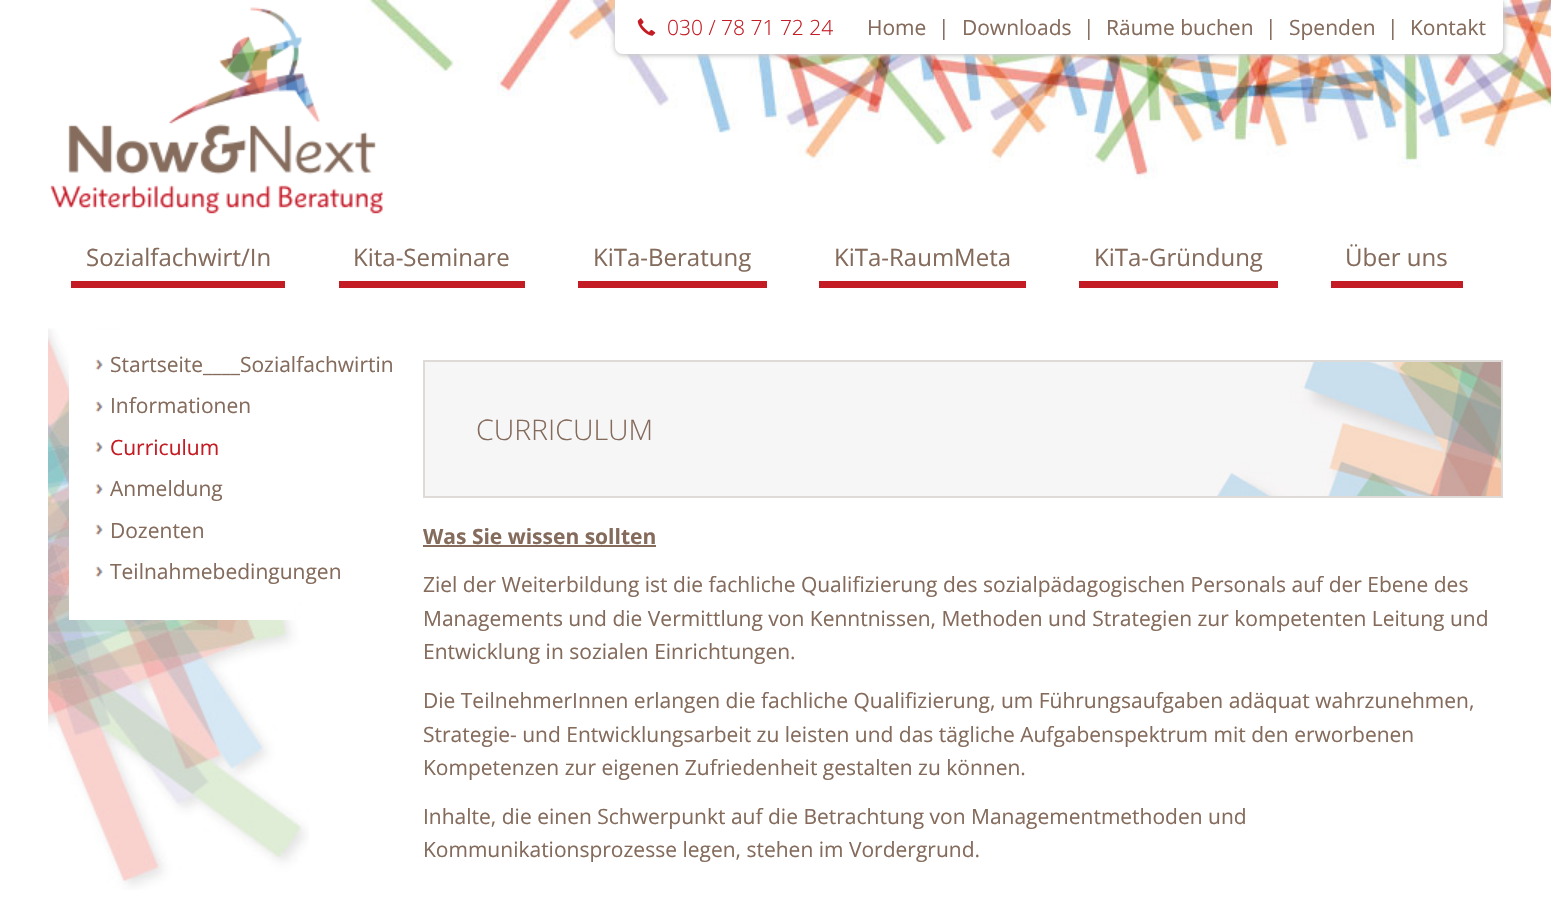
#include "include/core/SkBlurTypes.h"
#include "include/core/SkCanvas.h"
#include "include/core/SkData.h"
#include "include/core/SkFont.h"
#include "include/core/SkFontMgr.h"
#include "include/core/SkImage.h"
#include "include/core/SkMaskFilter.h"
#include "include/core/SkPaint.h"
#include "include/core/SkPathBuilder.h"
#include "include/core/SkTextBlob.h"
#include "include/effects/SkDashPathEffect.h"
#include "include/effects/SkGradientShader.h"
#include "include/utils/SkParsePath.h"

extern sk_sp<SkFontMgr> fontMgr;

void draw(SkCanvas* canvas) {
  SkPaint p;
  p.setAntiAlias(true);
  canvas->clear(SK_ColorWHITE);
  canvas->drawImageRect(SkImages::DeferredFromEncodedData(SkData::MakeFromFileName("images/1.png")), SkRect::MakeLTRB(365, 0, 1551, 180), SkSamplingOptions());
  canvas->drawImageRect(SkImages::DeferredFromEncodedData(SkData::MakeFromFileName("images/2.png")), SkRect::MakeLTRB(50, 7, 383, 214), SkSamplingOptions());
  p.setColor(SkColorSetRGB(204, 204, 204));
  p.setMaskFilter(SkMaskFilter::MakeBlur(kNormal_SkBlurStyle, 2));
  canvas->drawRoundRect(SkRect::MakeLTRB(614, -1, 1505, 56), 9, 9, p);
  p.setMaskFilter(nullptr);
  p.setColor(SK_ColorWHITE);
  canvas->drawPath(SkPathBuilder().moveTo(615, 0).lineTo(1503, 0).lineTo(1503, 46).cubicTo(1503, 50.5f, 1499.5f, 54, 1495, 54).lineTo(623, 54).cubicTo(618.5f, 54, 615, 50.5f, 615, 46).close().detach(), p);
  canvas->drawImageRect(SkImages::DeferredFromEncodedData(SkData::MakeFromFileName("images/3.png")), SkRect::MakeLTRB(637, 18, 656, 36), SkSamplingOptions());
  p.setColor(SkColorSetRGB(196, 28, 36));
  canvas->drawRect(SkRect::MakeLTRB(71, 281, 285, 288), p);
  canvas->drawRect(SkRect::MakeLTRB(339, 281, 525, 288), p);
  canvas->drawRect(SkRect::MakeLTRB(578, 281, 767, 288), p);
  canvas->drawRect(SkRect::MakeLTRB(819, 281, 1026, 288), p);
  canvas->drawRect(SkRect::MakeLTRB(1079, 281, 1278, 288), p);
  canvas->drawRect(SkRect::MakeLTRB(1331, 281, 1463, 288), p);
  canvas->drawImageRect(SkImages::DeferredFromEncodedData(SkData::MakeFromFileName("images/4.png")), SkRect::MakeLTRB(48, 328, 309, 890), SkSamplingOptions());
  p.setColor(SK_ColorWHITE);
  canvas->drawRect(SkRect::MakeLTRB(69, 329, 295, 620), p);
  canvas->drawImageRect(SkImages::DeferredFromEncodedData(SkData::MakeFromFileName("images/5.png")), SkRect::MakeLTRB(95, 359, 103, 371), SkSamplingOptions());
  canvas->drawImageRect(SkImages::DeferredFromEncodedData(SkData::MakeFromFileName("images/5.png")), SkRect::MakeLTRB(95, 401, 103, 413), SkSamplingOptions());
  canvas->drawImageRect(SkImages::DeferredFromEncodedData(SkData::MakeFromFileName("images/6.png")), SkRect::MakeLTRB(95, 442, 103, 453), SkSamplingOptions());
  canvas->drawImageRect(SkImages::DeferredFromEncodedData(SkData::MakeFromFileName("images/6.png")), SkRect::MakeLTRB(95, 484, 103, 495), SkSamplingOptions());
  canvas->drawImageRect(SkImages::DeferredFromEncodedData(SkData::MakeFromFileName("images/5.png")), SkRect::MakeLTRB(95, 524, 103, 536), SkSamplingOptions());
  canvas->drawImageRect(SkImages::DeferredFromEncodedData(SkData::MakeFromFileName("images/5.png")), SkRect::MakeLTRB(95, 566, 103, 578), SkSamplingOptions());
  p.setColor(SkColorSetRGB(247, 246, 246));
  canvas->drawRect(SkRect::MakeLTRB(425, 362, 1216, 496), p);
  canvas->drawImageRect(SkImages::DeferredFromEncodedData(SkData::MakeFromFileName("images/7.png")), SkRect::MakeLTRB(1216, 362, 1501, 496), SkSamplingOptions());
  p.setStyle(SkPaint::kStroke_Style);
  p.setStrokeWidth(2);
  p.setColor(SkColorSetRGB(222, 218, 215));
  canvas->drawRect(SkRect::MakeLTRB(424, 361, 1502, 497), p);
  p.setStyle(SkPaint::kFill_Style);
  p.setColor(SkColorSetRGB(132, 107, 92));
  canvas->drawRect(SkRect::MakeLTRB(423, 545, 656, 547), p);
  SkFont font1(fontMgr->matchFamilyStyle("Open Sans", SkFontStyle(300, SkFontStyle::kNormal_Width, SkFontStyle::kUpright_Slant)), 21);
  font1.setSubpixel(true);
  p.setColor(SkColorSetRGB(196, 28, 36));
  canvas->drawString("030 / 78 71 72 24", 667, 35, font1, p);
  SkFont font2(fontMgr->matchFamilyStyle("Open Sans", SkFontStyle::Normal()), 21);
  font2.setSubpixel(true);
  p.setColor(SkColorSetRGB(132, 107, 92));
  canvas->drawString("Home", 867, 35, font2, p);
  canvas->drawString("|", 938, 35, font2, p);
  canvas->drawString("Downloads", 962, 35, font2, p);
  canvas->drawString("|", 1083, 35, font2, p);
  canvas->drawString("Räume buchen", 1106, 35, font2, p);
  canvas->drawString("|", 1265, 35, font2, p);
  canvas->drawString("Spenden", 1289, 35, font2, p);
  canvas->drawString("|", 1387, 35, font2, p);
  canvas->drawString("Kontakt", 1410, 35, font2, p);
  SkFont font3(fontMgr->matchFamilyStyle("Open Sans", SkFontStyle::Normal()), 24);
  font3.setSubpixel(true);
  canvas->drawString("Sozialfachwirt/In", 86, 266, font3, p);
  canvas->drawString("Kita-Seminare", 353, 266, font3, p);
  canvas->drawString("KiTa-Beratung", 593, 266, font3, p);
  canvas->drawString("KiTa-RaumMeta", 834, 266, font3, p);
  canvas->drawString("KiTa-Gründung", 1094, 266, font3, p);
  canvas->drawString("Über uns", 1345, 266, font3, p);
  canvas->drawString("Startseite____Sozialfachwirtin", 110, 372, font2, p);
  canvas->drawString("Informationen", 110, 413, font2, p);
  p.setColor(SkColorSetRGB(196, 28, 36));
  canvas->drawString("Curriculum", 110, 455, font2, p);
  p.setColor(SkColorSetRGB(132, 107, 92));
  canvas->drawString("Anmeldung", 110, 496, font2, p);
  canvas->drawString("Dozenten", 110, 538, font2, p);
  canvas->drawString("Teilnahmebedingungen", 110, 579, font2, p);
  SkFont font4(fontMgr->matchFamilyStyle("Open Sans", SkFontStyle(300, SkFontStyle::kNormal_Width, SkFontStyle::kUpright_Slant)), 28.5f);
  font4.setSubpixel(true);
  canvas->drawString("CURRICULUM", 476, 440, font4, p);
  SkFont font5(fontMgr->matchFamilyStyle("Open Sans", SkFontStyle::Bold()), 21);
  font5.setSubpixel(true);
  canvas->drawString("Was Sie wissen sollten", 423, 544, font5, p);
  canvas->drawString("Ziel der Weiterbildung ist die fachliche Qualifizierung des sozialpädagogischen Personals auf der Ebene des", 423, 592, font2, p);
  canvas->drawString("Managements und die Vermittlung von Kenntnissen, Methoden und Strategien zur kompetenten Leitung und", 423, 626, font2, p);
  canvas->drawString("Entwicklung in sozialen Einrichtungen.", 423, 659, font2, p);
  canvas->drawString("Die TeilnehmerInnen erlangen die fachliche Qualifizierung, um Führungsaufgaben adäquat wahrzunehmen,", 423, 708, font2, p);
  canvas->drawString("Strategie- und Entwicklungsarbeit zu leisten und das tägliche Aufgabenspektrum mit den erworbenen", 423, 742, font2, p);
  canvas->drawString("Kompetenzen zur eigenen Zufriedenheit gestalten zu können.", 423, 775, font2, p);
  canvas->drawString("Inhalte, die einen Schwerpunkt auf die Betrachtung von Managementmethoden und", 423, 824, font2, p);
  canvas->drawString("Kommunikationsprozesse legen, stehen im Vordergrund.", 423, 857, font2, p);
}
